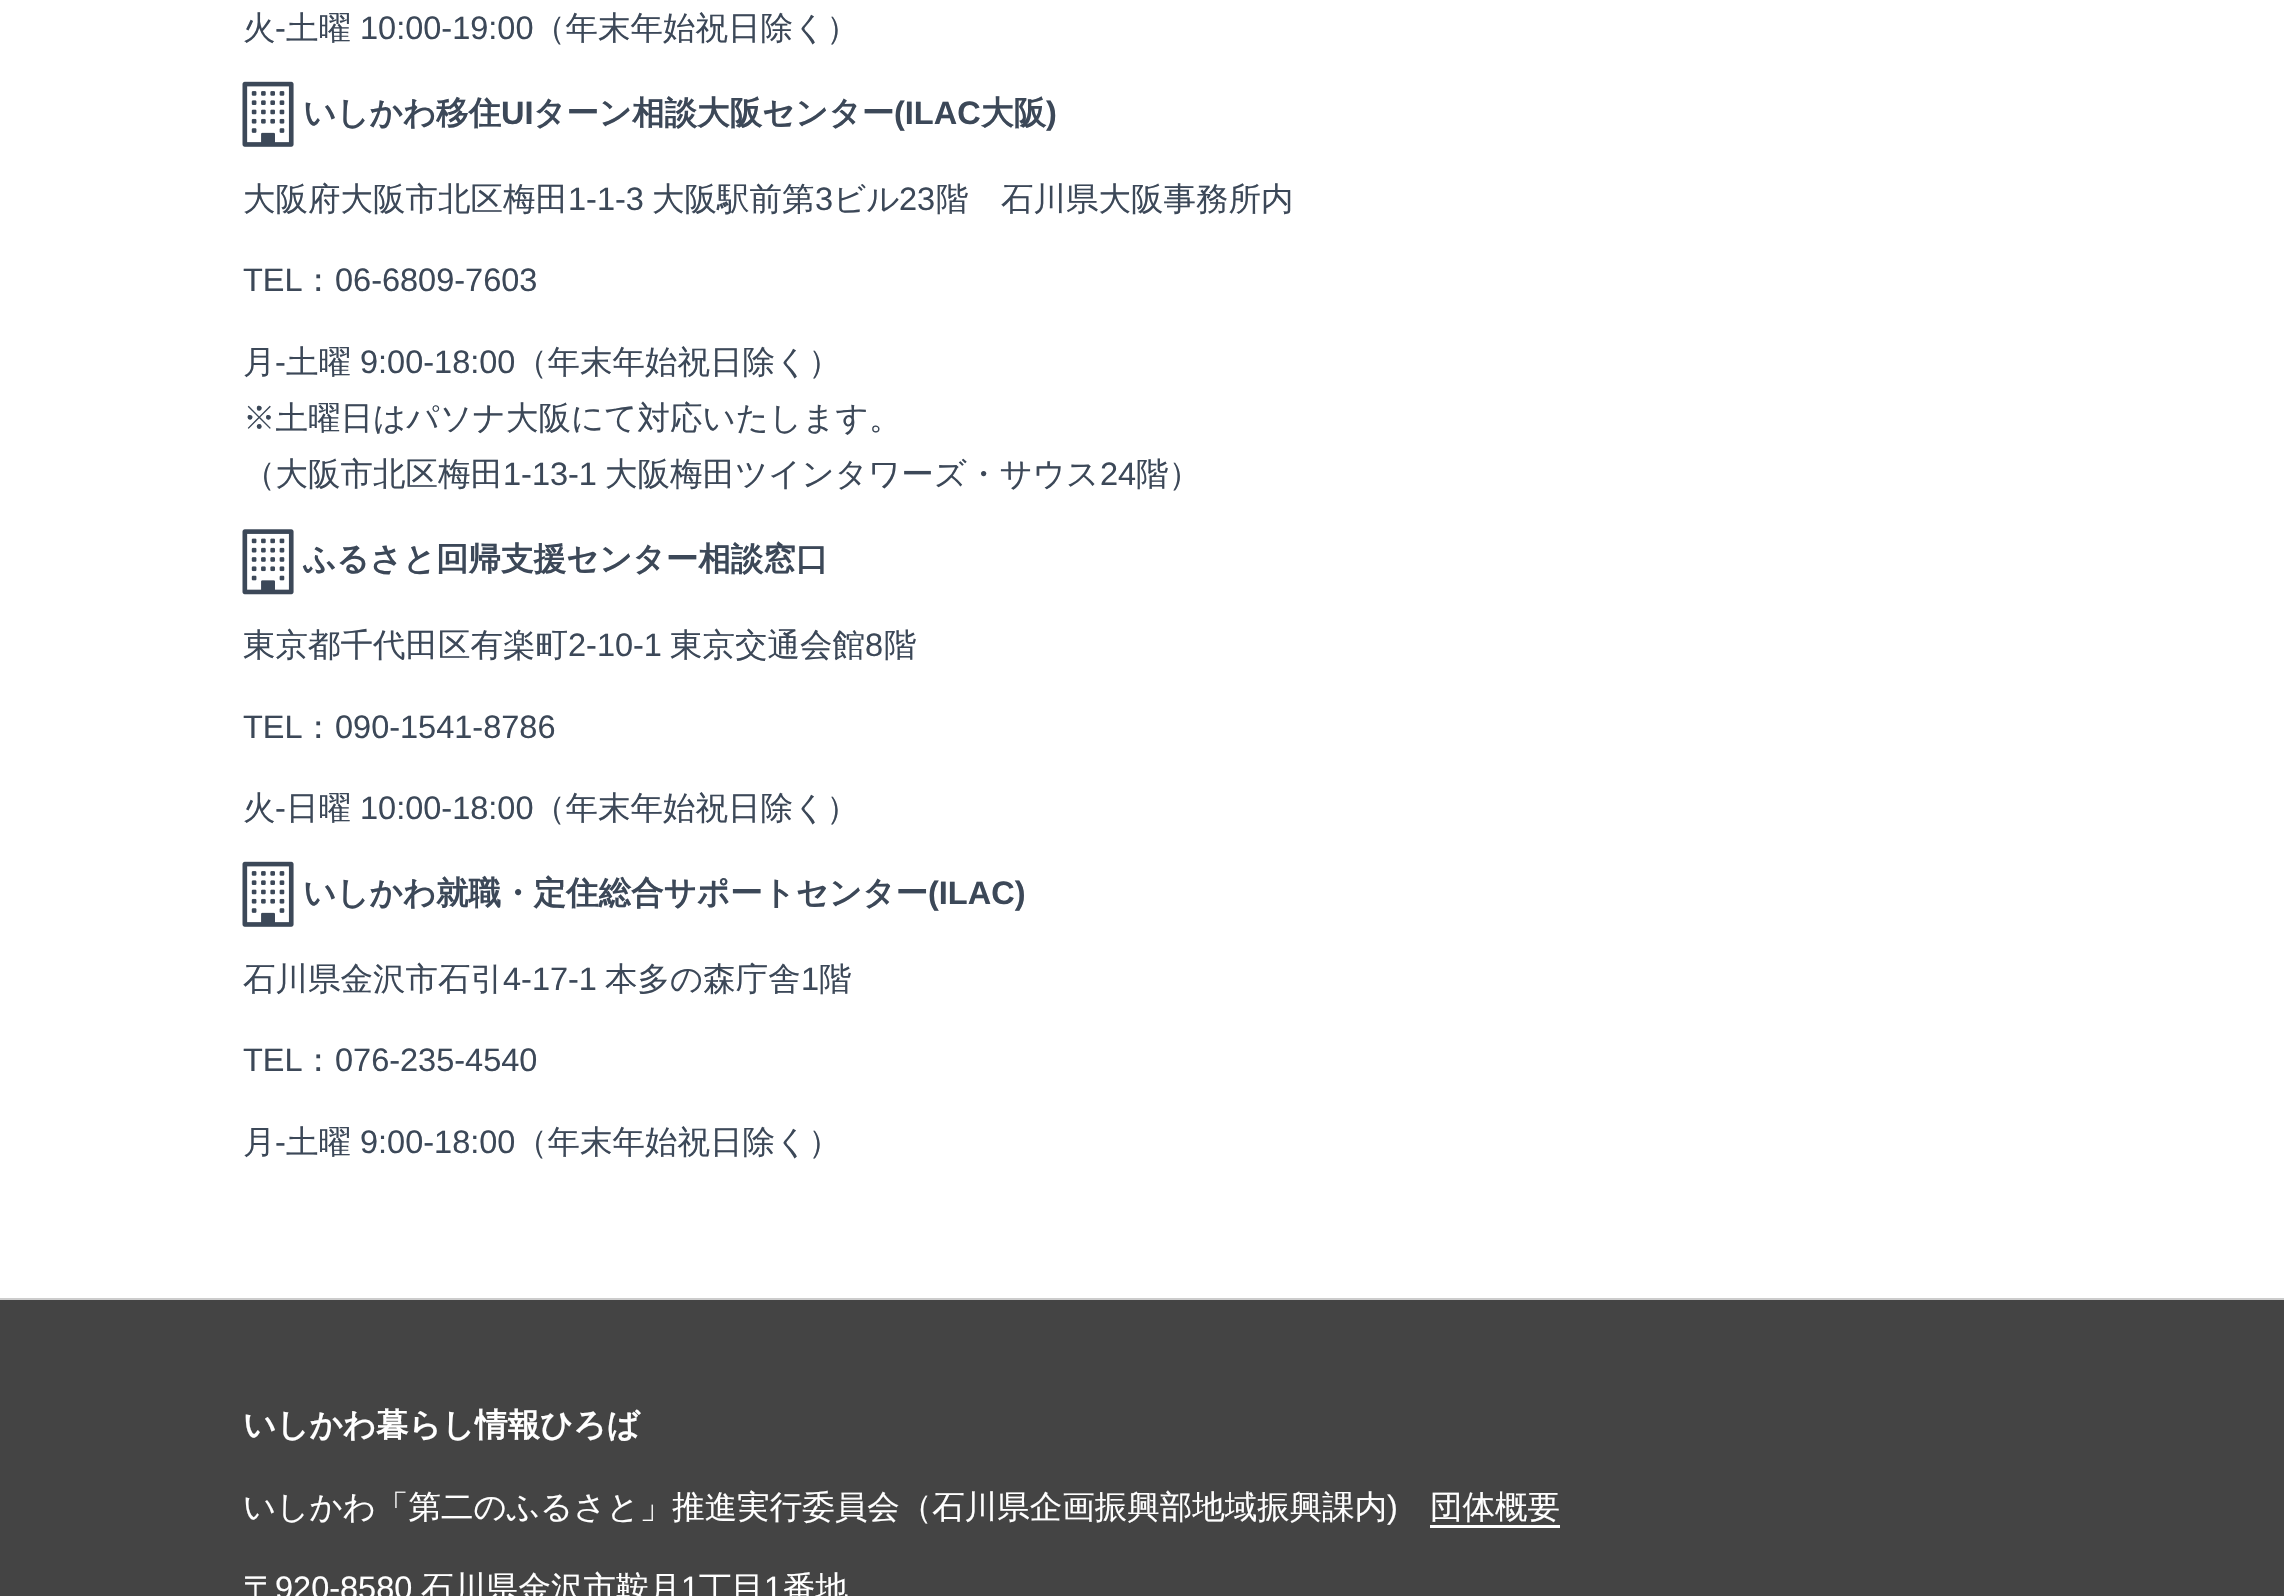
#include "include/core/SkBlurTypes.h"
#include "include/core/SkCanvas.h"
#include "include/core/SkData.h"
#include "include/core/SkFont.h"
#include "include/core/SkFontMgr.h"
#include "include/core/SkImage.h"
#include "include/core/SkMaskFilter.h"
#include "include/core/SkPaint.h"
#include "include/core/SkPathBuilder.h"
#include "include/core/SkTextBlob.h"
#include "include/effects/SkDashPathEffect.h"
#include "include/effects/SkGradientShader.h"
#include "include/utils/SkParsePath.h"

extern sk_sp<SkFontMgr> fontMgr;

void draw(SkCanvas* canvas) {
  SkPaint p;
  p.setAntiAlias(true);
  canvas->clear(SK_ColorWHITE);
  p.setColor(SkColorSetRGB(204, 204, 204));
  canvas->drawRect(SkRect::MakeLTRB(0, 1298, 2284, 1300), p);
  canvas->drawImageRect(SkImages::DeferredFromEncodedData(SkData::MakeFromFileName("images/1.png")), SkRect::MakeLTRB(242, 81, 294, 147), SkSamplingOptions());
  canvas->drawImageRect(SkImages::DeferredFromEncodedData(SkData::MakeFromFileName("images/2.png")), SkRect::MakeLTRB(242, 529, 294, 595), SkSamplingOptions());
  canvas->drawImageRect(SkImages::DeferredFromEncodedData(SkData::MakeFromFileName("images/1.png")), SkRect::MakeLTRB(242, 861, 294, 927), SkSamplingOptions());
  p.setColor(SkColorSetRGB(68, 68, 68));
  canvas->drawRect(SkRect::MakeLTRB(0, 1300, 2284, 1596), p);
  p.setColor(SK_ColorWHITE);
  canvas->drawRect(SkRect::MakeLTRB(1430, 1525, 1560, 1528), p);
  SkFont font1(fontMgr->matchFamilyStyle("WenQuanYi Zen Hei", SkFontStyle(500, SkFontStyle::kNormal_Width, SkFontStyle::kUpright_Slant)), 32.5f);
  font1.setSubpixel(true);
  p.setColor(SkColorSetRGB(60, 72, 88));
  canvas->drawString("火", 243, 39, font1, p);
  SkFont font2(fontMgr->matchFamilyStyle("Liberation Sans", SkFontStyle::Normal()), 32.5f);
  font2.setSubpixel(true);
  canvas->drawString("-", 275, 39, font2, p);
  canvas->drawString("土曜", 286, 39, font1, p);
  canvas->drawString("10:00-19:00", 360, 39, font2, p);
  canvas->drawString("（年末年始祝日除く）", 533, 39, font1, p);
  SkFont font3(fontMgr->matchFamilyStyle("WenQuanYi Zen Hei", SkFontStyle::Bold()), 32.5f);
  font3.setSubpixel(true);
  canvas->drawString("いしかわ移住", 303, 124, font3, p);
  SkFont font4(fontMgr->matchFamilyStyle("Liberation Sans", SkFontStyle::Bold()), 32.5f);
  font4.setSubpixel(true);
  canvas->drawString("UI", 501, 124, font4, p);
  canvas->drawString("ターン相談大阪センター", 533, 124, font3, p);
  canvas->drawString("(ILAC", 894, 124, font4, p);
  canvas->drawString("大阪", 981, 124, font3, p);
  canvas->drawString(")", 1046, 124, font4, p);
  canvas->drawString("大阪府大阪市北区梅田", 243, 210, font1, p);
  canvas->drawString("1-1-3", 568, 210, font2, p);
  canvas->drawString("大阪駅前第", 652, 210, font1, p);
  canvas->drawString("3", 815, 210, font2, p);
  canvas->drawString("ビル", 833, 210, font1, p);
  canvas->drawString("23", 899, 210, font2, p);
  canvas->drawString("階　石川県大阪事務所内", 936, 210, font1, p);
  canvas->drawString("TEL", 243, 291, font2, p);
  canvas->drawString("：", 302, 291, font1, p);
  canvas->drawString("06-6809-7603", 335, 291, font2, p);
  canvas->drawString("月", 243, 373, font1, p);
  canvas->drawString("-", 275, 373, font2, p);
  canvas->drawString("土曜", 286, 373, font1, p);
  canvas->drawString("9:00-18:00", 360, 373, font2, p);
  canvas->drawString("（年末年始祝日除く）", 515, 373, font1, p);
  canvas->drawString("※土曜日はパソナ大阪にて対応いたします。", 243, 429, font1, p);
  canvas->drawString("（大阪市北区梅田", 243, 485, font1, p);
  canvas->drawString("1-13-1", 503, 485, font2, p);
  canvas->drawString("大阪梅田ツインタワーズ・サウス", 605, 485, font1, p);
  canvas->drawString("24", 1100, 485, font2, p);
  canvas->drawString("階）", 1136, 485, font1, p);
  canvas->drawString("ふるさと回帰支援センター相談窓口", 303, 570, font3, p);
  canvas->drawString("東京都千代田区有楽町", 243, 656, font1, p);
  canvas->drawString("2-10-1", 568, 656, font2, p);
  canvas->drawString("東京交通会館", 670, 656, font1, p);
  canvas->drawString("8", 865, 656, font2, p);
  canvas->drawString("階", 884, 656, font1, p);
  canvas->drawString("TEL", 243, 738, font2, p);
  canvas->drawString("：", 302, 738, font1, p);
  canvas->drawString("090-1541-8786", 335, 738, font2, p);
  canvas->drawString("火", 243, 819, font1, p);
  canvas->drawString("-", 275, 819, font2, p);
  canvas->drawString("日曜", 286, 819, font1, p);
  canvas->drawString("10:00-18:00", 360, 819, font2, p);
  canvas->drawString("（年末年始祝日除く）", 533, 819, font1, p);
  canvas->drawString("いしかわ就職・定住総合サポートセンター", 303, 904, font3, p);
  canvas->drawString("(ILAC)", 928, 904, font4, p);
  canvas->drawString("石川県金沢市石引", 243, 990, font1, p);
  canvas->drawString("4-17-1", 503, 990, font2, p);
  canvas->drawString("本多の森庁舎", 605, 990, font1, p);
  canvas->drawString("1", 801, 990, font2, p);
  canvas->drawString("階", 819, 990, font1, p);
  canvas->drawString("TEL", 243, 1071, font2, p);
  canvas->drawString("：", 302, 1071, font1, p);
  canvas->drawString("076-235-4540", 335, 1071, font2, p);
  canvas->drawString("月", 243, 1153, font1, p);
  canvas->drawString("-", 275, 1153, font2, p);
  canvas->drawString("土曜", 286, 1153, font1, p);
  canvas->drawString("9:00-18:00", 360, 1153, font2, p);
  canvas->drawString("（年末年始祝日除く）", 515, 1153, font1, p);
  p.setColor(SK_ColorWHITE);
  canvas->drawString("いしかわ暮らし情報ひろば", 243, 1436, font3, p);
  canvas->drawString("いしかわ「第二のふるさと」推進実行委員会（石川県企画振興部地域振興課内", 243, 1518, font1, p);
  canvas->drawString(")", 1387, 1518, font2, p);
  canvas->drawString("団体概要", 1430, 1518, font1, p);
  canvas->drawString("〒", 243, 1599, font1, p);
  canvas->drawString("920-8580", 275, 1599, font2, p);
  canvas->drawString("石川県金沢市鞍月", 421, 1599, font1, p);
  canvas->drawString("1", 681, 1599, font2, p);
  canvas->drawString("丁目", 699, 1599, font1, p);
  canvas->drawString("1", 764, 1599, font2, p);
  canvas->drawString("番地", 783, 1599, font1, p);
}
